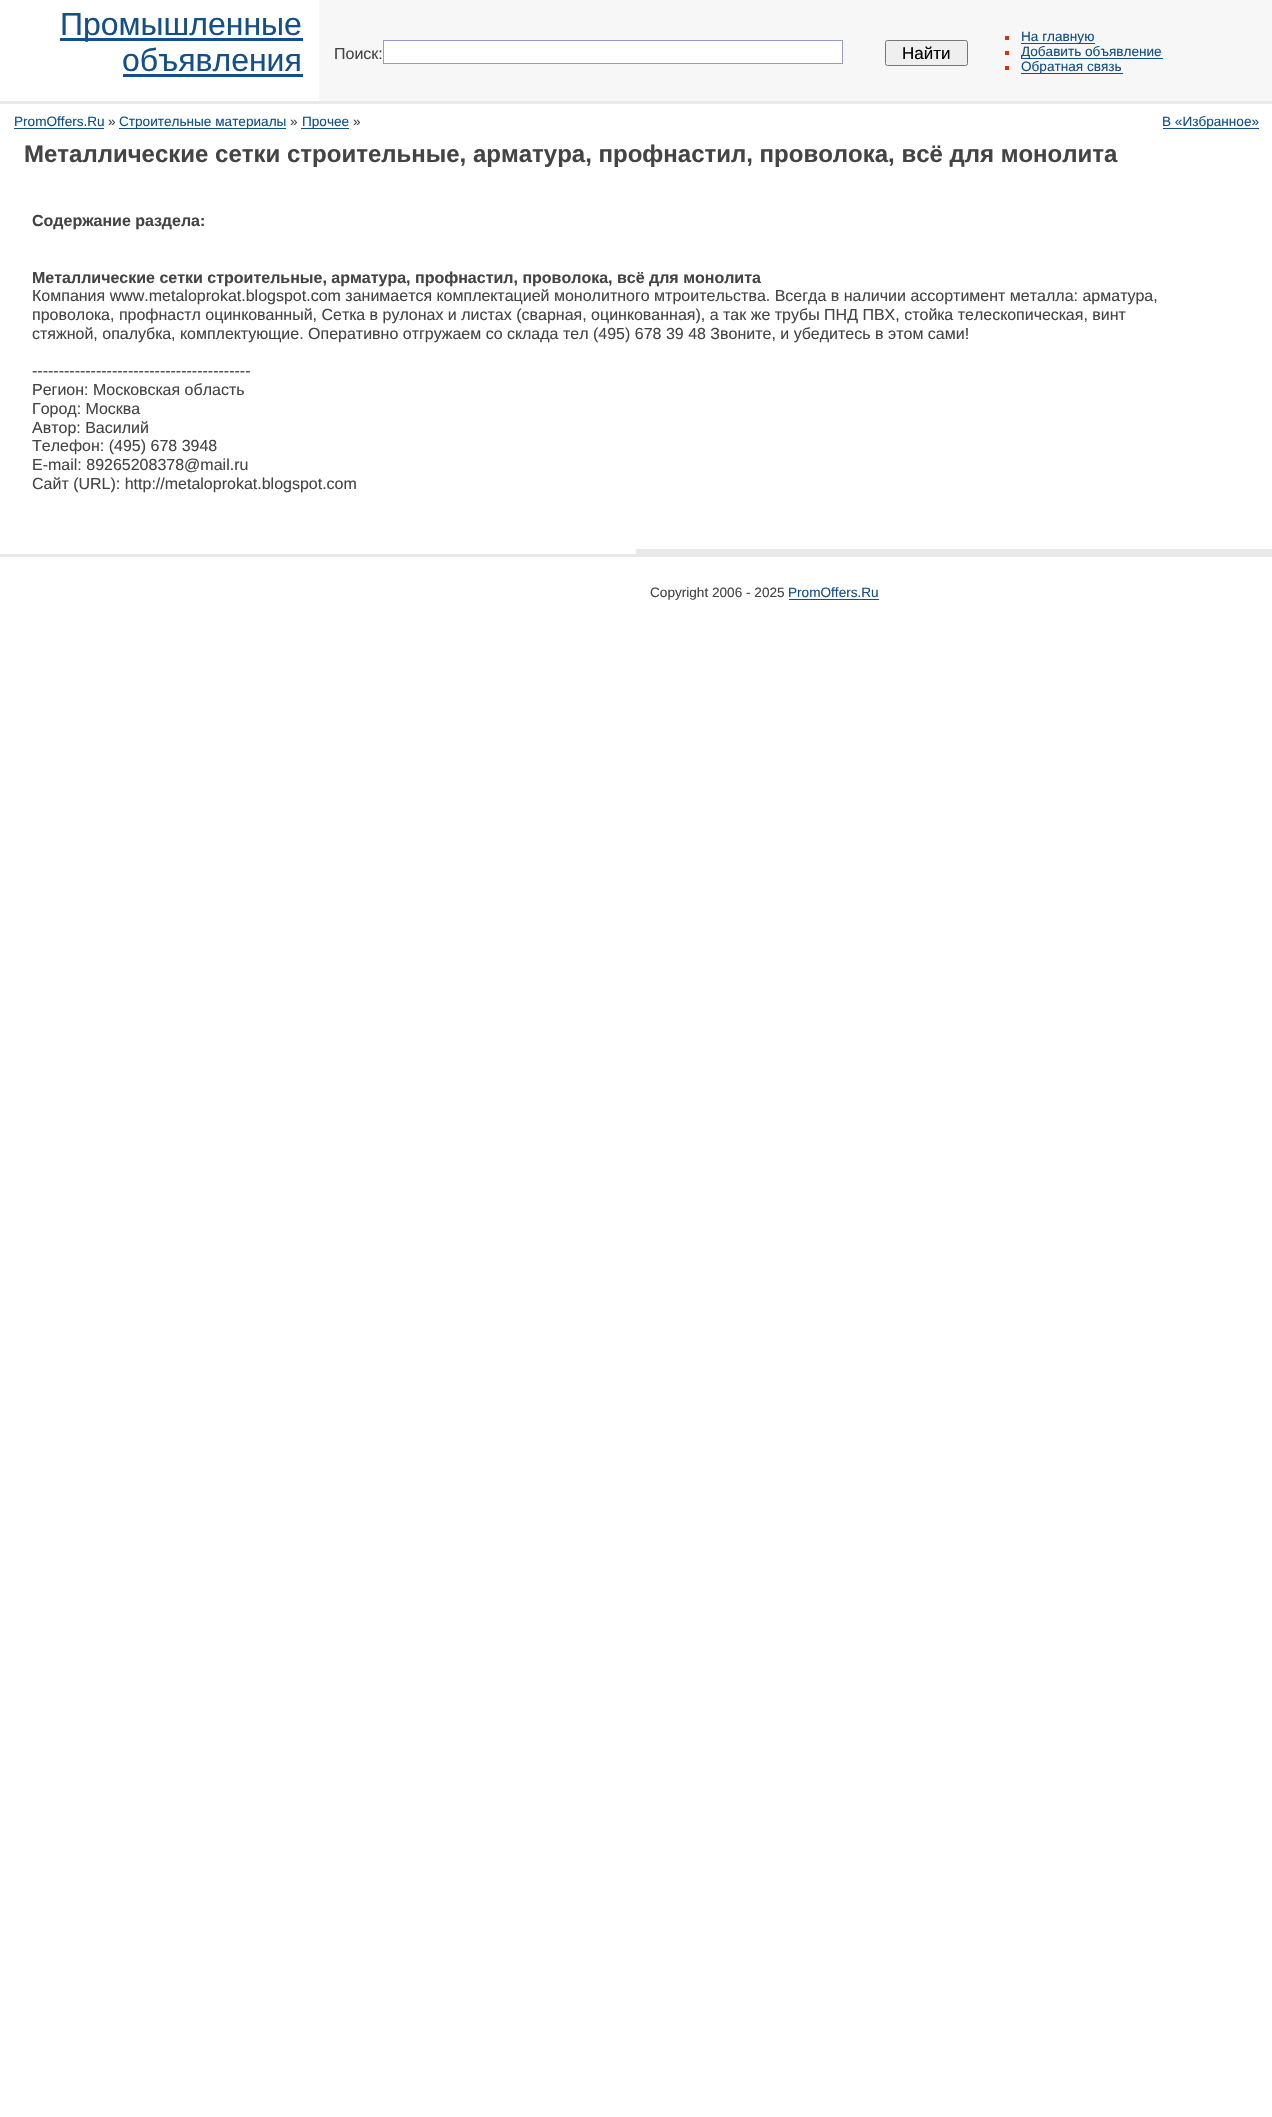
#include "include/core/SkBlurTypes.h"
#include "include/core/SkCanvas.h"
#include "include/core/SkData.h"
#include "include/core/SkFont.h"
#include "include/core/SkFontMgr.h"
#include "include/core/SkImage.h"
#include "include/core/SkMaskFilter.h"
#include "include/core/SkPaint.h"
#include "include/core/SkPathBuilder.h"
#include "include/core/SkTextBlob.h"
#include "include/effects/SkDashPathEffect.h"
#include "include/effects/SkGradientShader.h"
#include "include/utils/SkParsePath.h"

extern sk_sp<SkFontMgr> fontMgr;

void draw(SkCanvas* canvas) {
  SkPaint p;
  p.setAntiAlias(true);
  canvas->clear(SK_ColorWHITE);
  p.setColor(SkColorSetRGB(19, 79, 138));
  canvas->drawRect(SkRect::MakeLTRB(60, 38, 303, 41), p);
  canvas->drawRect(SkRect::MakeLTRB(123, 74, 303, 77), p);
  p.setColor(SkColorSetRGB(247, 247, 247));
  canvas->drawRect(SkRect::MakeLTRB(319, 0, 1272, 101), p);
  p.setColor(SK_ColorWHITE);
  canvas->drawRect(SkRect::MakeLTRB(383.5f, 40.5f, 842.5f, 63.5f), p);
  p.setStyle(SkPaint::kStroke_Style);
  p.setStrokeWidth(1);
  p.setColor(SkColorSetRGB(153, 153, 204));
  canvas->drawRect(SkRect::MakeLTRB(383.5f, 40.5f, 842.5f, 63.5f), p);
  p.setStyle(SkPaint::kFill_Style);
  p.setColor(SkColorSetRGB(239, 239, 239));
  canvas->drawRoundRect(SkRect::MakeLTRB(885.5f, 40.5f, 967.5f, 65.5f), 2, 2, p);
  p.setStyle(SkPaint::kStroke_Style);
  p.setColor(SkColorSetRGB(118, 118, 118));
  canvas->drawRoundRect(SkRect::MakeLTRB(885.5f, 40.5f, 967.5f, 65.5f), 2, 2, p);
  p.setStyle(SkPaint::kFill_Style);
  p.setColor(SkColorSetRGB(218, 49, 3));
  canvas->drawRect(SkRect::MakeLTRB(1005, 36, 1009, 40), p);
  p.setColor(SkColorSetRGB(19, 79, 138));
  canvas->drawRect(SkRect::MakeLTRB(1021, 43, 1095, 44), p);
  p.setColor(SkColorSetRGB(218, 49, 3));
  canvas->drawRect(SkRect::MakeLTRB(1005, 51, 1009, 55), p);
  p.setColor(SkColorSetRGB(19, 79, 138));
  canvas->drawRect(SkRect::MakeLTRB(1021, 58, 1163, 59), p);
  p.setColor(SkColorSetRGB(218, 49, 3));
  canvas->drawRect(SkRect::MakeLTRB(1005, 66, 1009, 70), p);
  p.setColor(SkColorSetRGB(19, 79, 138));
  canvas->drawRect(SkRect::MakeLTRB(1021, 73, 1123, 74), p);
  p.setColor(SkColorSetRGB(233, 233, 233));
  canvas->drawRect(SkRect::MakeLTRB(0, 101, 1272, 104), p);
  p.setColor(SkColorSetRGB(19, 79, 138));
  canvas->drawRect(SkRect::MakeLTRB(14, 128, 104, 129), p);
  canvas->drawRect(SkRect::MakeLTRB(119, 128, 286, 129), p);
  canvas->drawRect(SkRect::MakeLTRB(301, 128, 349, 129), p);
  canvas->drawRect(SkRect::MakeLTRB(1163, 128, 1259, 129), p);
  p.setColor(SkColorSetRGB(233, 233, 233));
  canvas->drawRect(SkRect::MakeLTRB(636, 549, 1272, 554), p);
  canvas->drawRect(SkRect::MakeLTRB(0, 554, 1272, 557), p);
  p.setColor(SkColorSetRGB(19, 79, 138));
  canvas->drawRect(SkRect::MakeLTRB(789, 599, 879, 600), p);
  SkFont font1(fontMgr->matchFamilyStyle("Liberation Sans", SkFontStyle::Normal()), 32);
  font1.setSubpixel(true);
  canvas->drawString("Промышленные", 60, 35, font1, p);
  canvas->drawString("объявления", 122, 71, font1, p);
  SkFont font2(fontMgr->matchFamilyStyle("Liberation Sans", SkFontStyle::Normal()), 16);
  font2.setSubpixel(true);
  p.setColor(SkColorSetRGB(68, 68, 68));
  canvas->drawString("Поиск:", 334, 59, font2, p);
  SkFont font3(fontMgr->matchFamilyStyle("Liberation Sans", SkFontStyle::Normal()), 17);
  font3.setSubpixel(true);
  p.setColor(SK_ColorBLACK);
  canvas->drawString("Найти", 902, 59, font3, p);
  SkFont font4(fontMgr->matchFamilyStyle("Liberation Sans", SkFontStyle::Normal()), 13.6f);
  font4.setSubpixel(true);
  p.setColor(SkColorSetRGB(19, 79, 138));
  canvas->drawString("На главную", 1021, 41, font4, p);
  canvas->drawString("Добавить объявление", 1021, 56, font4, p);
  canvas->drawString("Обратная связь", 1021, 71, font4, p);
  canvas->drawString("PromOffers.Ru", 14, 126, font4, p);
  p.setColor(SkColorSetRGB(68, 68, 68));
  canvas->drawString("»", 108, 126, font4, p);
  p.setColor(SkColorSetRGB(19, 79, 138));
  canvas->drawString("Строительные материалы", 119, 126, font4, p);
  p.setColor(SkColorSetRGB(68, 68, 68));
  canvas->drawString("»", 290, 126, font4, p);
  p.setColor(SkColorSetRGB(19, 79, 138));
  canvas->drawString("Прочее", 302, 126, font4, p);
  p.setColor(SkColorSetRGB(68, 68, 68));
  canvas->drawString("»", 353, 126, font4, p);
  p.setColor(SkColorSetRGB(19, 79, 138));
  canvas->drawString("В «Избранное»", 1162, 126, font4, p);
  SkFont font5(fontMgr->matchFamilyStyle("Liberation Sans", SkFontStyle::Bold()), 24);
  font5.setSubpixel(true);
  p.setColor(SkColorSetRGB(68, 68, 68));
  canvas->drawString("Металлические сетки строительные, арматура, профнастил, проволока, всё для монолита", 24, 162, font5, p);
  SkFont font6(fontMgr->matchFamilyStyle("Liberation Sans", SkFontStyle::Bold()), 16);
  font6.setSubpixel(true);
  canvas->drawString("Содержание раздела:", 32, 226, font6, p);
  canvas->drawString("Металлические сетки строительные, арматура, профнастил, проволока, всё для монолита", 32, 283, font6, p);
  canvas->drawString("Компания www.metaloprokat.blogspot.com занимается комплектацией монолитного мтроительства. Всегда в наличии ассортимент металла: арматура,", 32, 301, font2, p);
  canvas->drawString("проволока, профнастл оцинкованный, Сетка в рулонах и листах (сварная, оцинкованная), а так же трубы ПНД ПВХ, стойка телескопическая, винт", 32, 320, font2, p);
  canvas->drawString("стяжной, опалубка, комплектующие. Оперативно отгружаем со склада тел (495) 678 39 48 Звоните, и убедитесь в этом сами!", 32, 339, font2, p);
  canvas->drawString("-----------------------------------------", 32, 376, font2, p);
  canvas->drawString("Регион: Московская область", 32, 395, font2, p);
  canvas->drawString("Город: Москва", 32, 414, font2, p);
  canvas->drawString("Автор: Василий", 32, 433, font2, p);
  canvas->drawString("Телефон: (495) 678 3948", 32, 451, font2, p);
  canvas->drawString("E-mail: 89265208378@mail.ru", 32, 470, font2, p);
  canvas->drawString("Сайт (URL): http://metaloprokat.blogspot.com", 32, 489, font2, p);
  canvas->drawString("Copyright 2006 - 2025", 650, 597, font4, p);
  p.setColor(SkColorSetRGB(19, 79, 138));
  canvas->drawString("PromOffers.Ru", 788, 597, font4, p);
}
